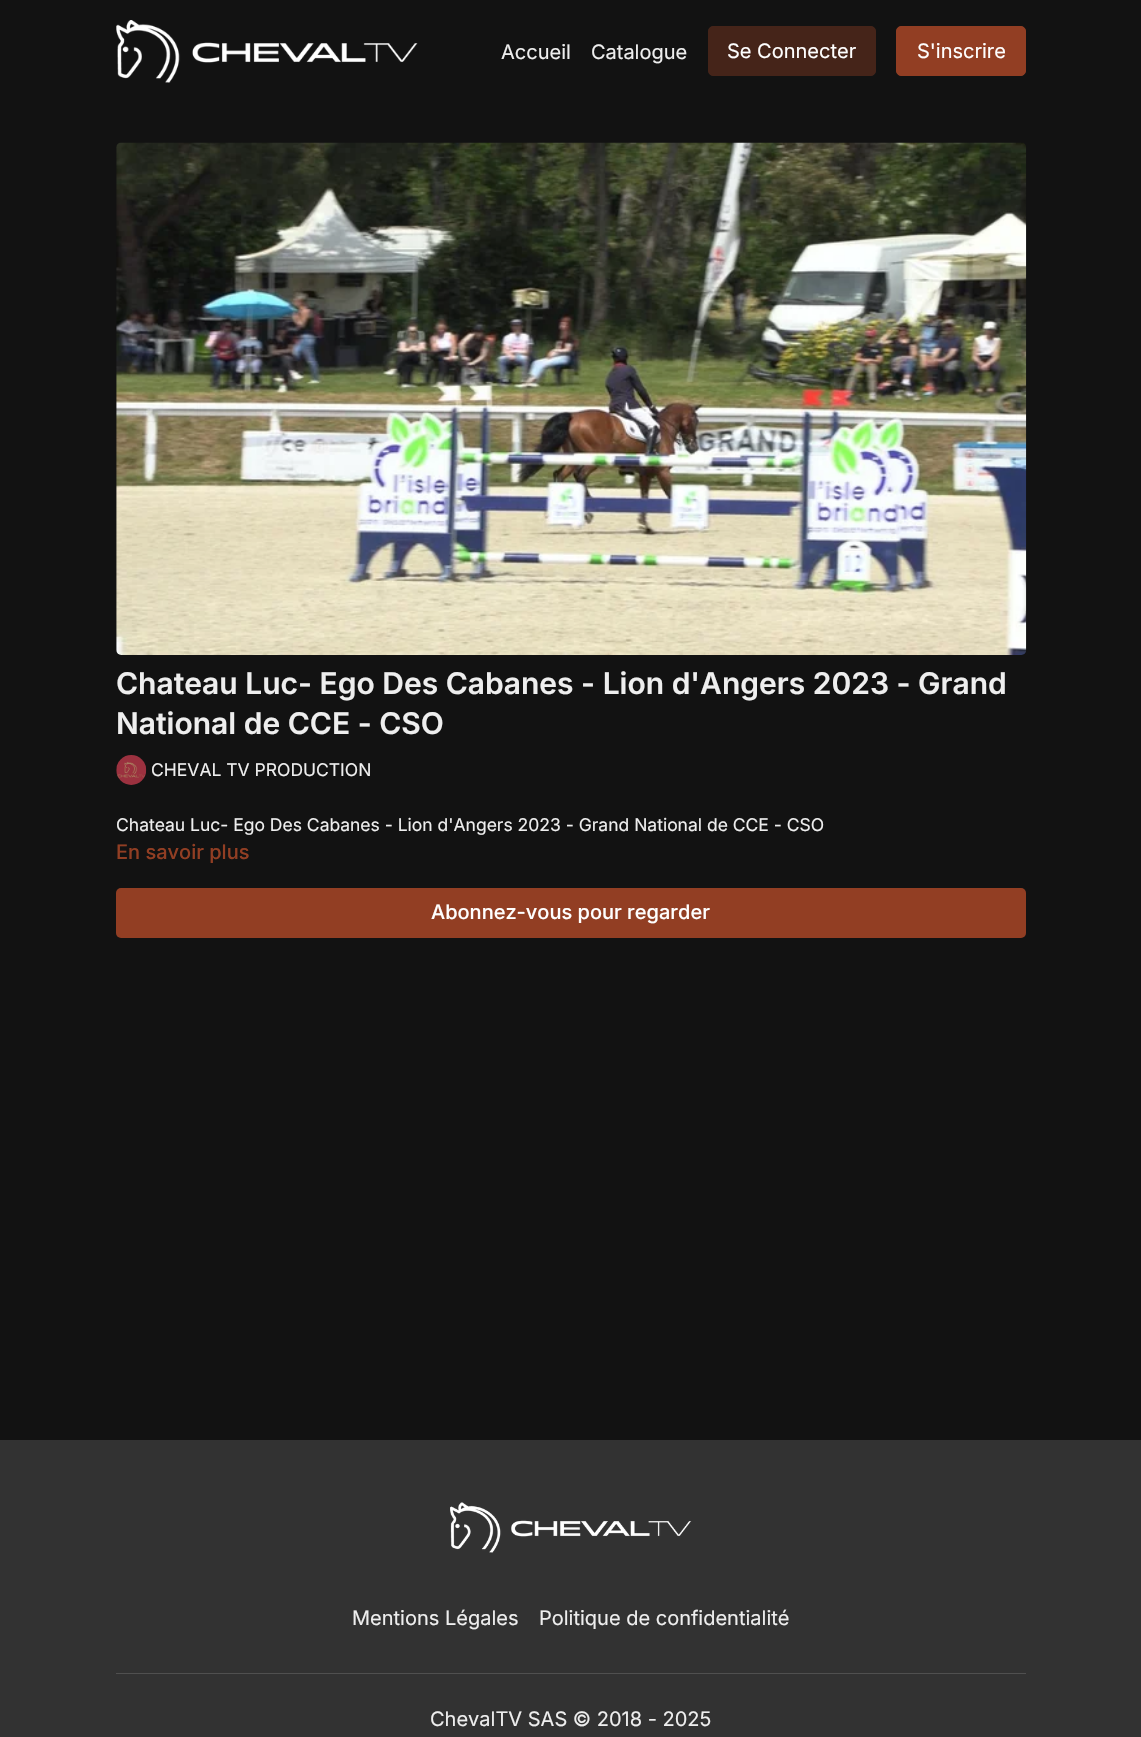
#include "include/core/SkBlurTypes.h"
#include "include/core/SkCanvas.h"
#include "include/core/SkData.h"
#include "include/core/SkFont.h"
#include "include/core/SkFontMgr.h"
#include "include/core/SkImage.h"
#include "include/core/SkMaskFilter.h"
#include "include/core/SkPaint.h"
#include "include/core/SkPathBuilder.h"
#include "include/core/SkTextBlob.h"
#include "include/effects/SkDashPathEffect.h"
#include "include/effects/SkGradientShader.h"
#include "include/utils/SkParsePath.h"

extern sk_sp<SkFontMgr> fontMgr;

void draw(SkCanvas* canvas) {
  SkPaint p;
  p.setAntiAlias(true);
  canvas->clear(SkColorSetRGB(18, 18, 18));
  canvas->drawImageRect(SkImages::DeferredFromEncodedData(SkData::MakeFromFileName("images/1.png")), SkRect::MakeLTRB(116, 20, 418, 83), SkSamplingOptions());
  p.setColor(SkColorSetRGB(69, 36, 25));
  canvas->drawRoundRect(SkRect::MakeLTRB(708.5f, 26.5f, 875.5f, 75.5f), 4.5f, 4.5f, p);
  p.setStyle(SkPaint::kStroke_Style);
  p.setStrokeWidth(1);
  canvas->drawRoundRect(SkRect::MakeLTRB(708.5f, 26.5f, 875.5f, 75.5f), 4.5f, 4.5f, p);
  p.setStyle(SkPaint::kFill_Style);
  p.setColor(SkColorSetRGB(146, 62, 35));
  canvas->drawRoundRect(SkRect::MakeLTRB(896.5f, 26.5f, 1025.5f, 75.5f), 4.5f, 4.5f, p);
  p.setStyle(SkPaint::kStroke_Style);
  canvas->drawRoundRect(SkRect::MakeLTRB(896.5f, 26.5f, 1025.5f, 75.5f), 4.5f, 4.5f, p);
  canvas->drawImageRect(SkImages::DeferredFromEncodedData(SkData::MakeFromFileName("images/2.png")), SkRect::MakeLTRB(116, 142, 1027, 655), SkSamplingOptions());
  canvas->drawImageRect(SkImages::DeferredFromEncodedData(SkData::MakeFromFileName("images/3.png")), SkRect::MakeLTRB(116, 755, 147, 785), SkSamplingOptions());
  p.setStyle(SkPaint::kFill_Style);
  canvas->drawRoundRect(SkRect::MakeLTRB(116, 888, 1026, 938), 5, 5, p);
  p.setColor(SkColorSetRGB(50, 50, 50));
  canvas->drawRect(SkRect::MakeLTRB(0, 1440, 1141, 1737), p);
  canvas->drawImageRect(SkImages::DeferredFromEncodedData(SkData::MakeFromFileName("images/4.png")), SkRect::MakeLTRB(450, 1502, 692, 1553), SkSamplingOptions());
  p.setColor(SkColorSetRGB(80, 80, 80));
  canvas->drawRect(SkRect::MakeLTRB(116, 1673, 1026, 1674), p);
  SkFont font1(fontMgr->matchFamilyStyle("Inter", SkFontStyle::Normal()), 20);
  font1.setSubpixel(true);
  p.setColor(SkColorSetRGB(238, 238, 238));
  canvas->drawString("Accueil", 501, 59, font1, p);
  canvas->drawString("Catalogue", 591, 59, font1, p);
  p.setColor(SK_ColorWHITE);
  canvas->drawString("Se Connecter", 727, 58, font1, p);
  canvas->drawString("S'inscrire", 917, 58, font1, p);
  SkFont font2(fontMgr->matchFamilyStyle("Inter", SkFontStyle(600, SkFontStyle::kNormal_Width, SkFontStyle::kUpright_Slant)), 30);
  font2.setSubpixel(true);
  p.setColor(SkColorSetRGB(238, 238, 238));
  canvas->drawString("Chateau Luc- Ego Des Cabanes - Lion d'Angers 2023 - Grand", 116, 694, font2, p);
  canvas->drawString("National de CCE - CSO", 116, 734, font2, p);
  SkFont font3(fontMgr->matchFamilyStyle("Inter", SkFontStyle::Normal()), 17.5f);
  font3.setSubpixel(true);
  canvas->drawString("CHEVAL TV PRODUCTION", 151, 776, font3, p);
  canvas->drawString("Chateau Luc- Ego Des Cabanes - Lion d'Angers 2023 - Grand National de CCE - CSO", 116, 831, font3, p);
  SkFont font4(fontMgr->matchFamilyStyle("Inter", SkFontStyle(500, SkFontStyle::kNormal_Width, SkFontStyle::kUpright_Slant)), 20);
  font4.setSubpixel(true);
  p.setColor(SkColorSetRGB(146, 62, 35));
  canvas->drawString("En savoir plus", 116, 859, font4, p);
  p.setColor(SK_ColorWHITE);
  canvas->drawString("Abonnez-vous pour regarder", 431, 919, font4, p);
  p.setColor(SkColorSetRGB(238, 238, 238));
  canvas->drawString("Mentions Légales", 352, 1625, font1, p);
  canvas->drawString("Politique de confidentialité", 539, 1625, font1, p);
  canvas->drawString("ChevalTV SAS © 2018 - 2025", 430, 1726, font1, p);
}
